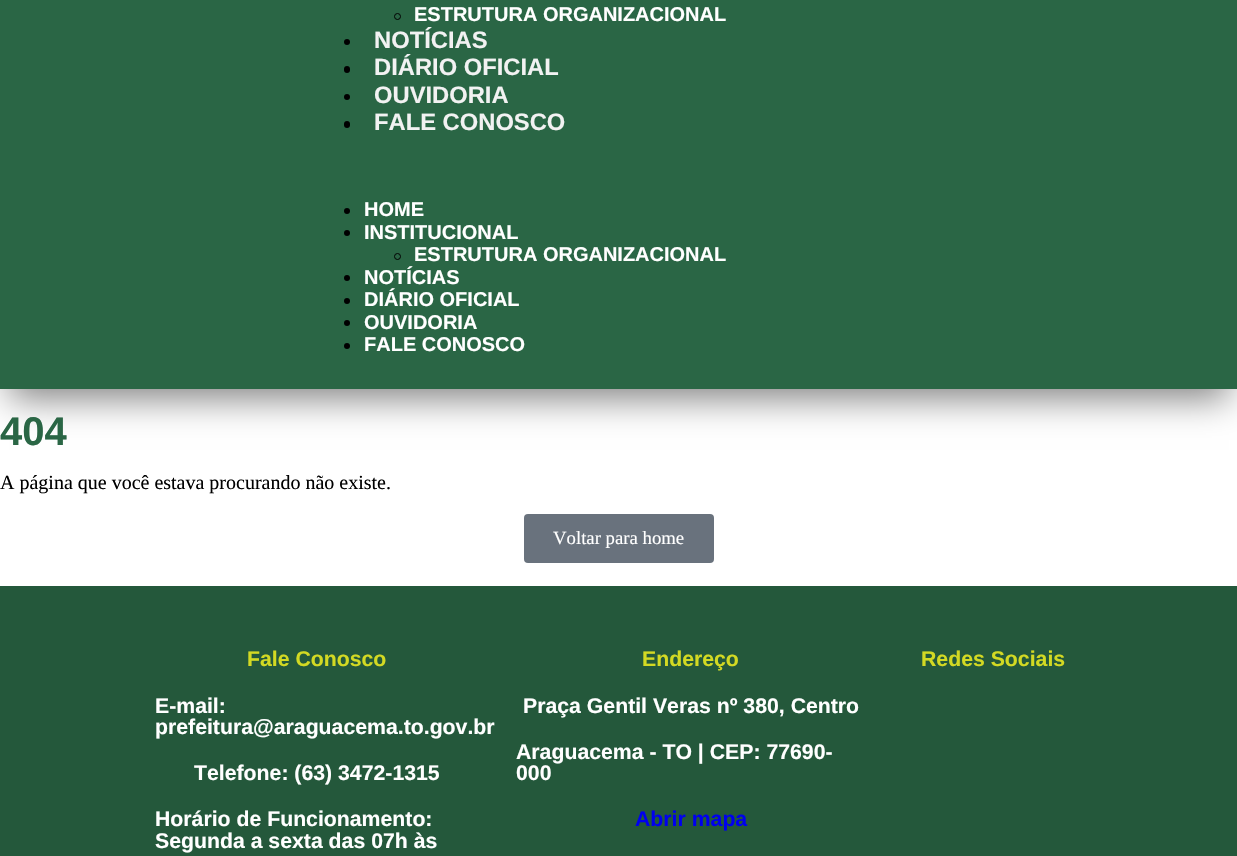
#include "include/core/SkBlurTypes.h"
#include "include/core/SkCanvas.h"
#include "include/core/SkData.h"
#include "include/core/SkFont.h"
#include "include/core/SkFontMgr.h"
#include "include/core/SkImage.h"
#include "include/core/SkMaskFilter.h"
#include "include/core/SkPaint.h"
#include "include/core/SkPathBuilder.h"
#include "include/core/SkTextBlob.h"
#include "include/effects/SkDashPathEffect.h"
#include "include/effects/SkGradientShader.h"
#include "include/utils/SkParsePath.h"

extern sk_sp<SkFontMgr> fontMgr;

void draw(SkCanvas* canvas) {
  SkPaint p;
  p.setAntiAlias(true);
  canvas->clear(SK_ColorWHITE);
  p.setColor(SkColorSetARGB(128, 0, 0, 0));
  p.setMaskFilter(SkMaskFilter::MakeBlur(kNormal_SkBlurStyle, 17.5f));
  canvas->drawRect(SkRect::MakeLTRB(9, -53, 1229, 398), p);
  p.setMaskFilter(nullptr);
  p.setColor(SkColorSetRGB(42, 102, 69));
  canvas->drawRect(SkRect::MakeLTRB(0, 0, 1237, 389), p);
  p.setStyle(SkPaint::kStroke_Style);
  p.setStrokeWidth(1);
  p.setColor(SK_ColorBLACK);
  canvas->drawCircle(397.5f, 16.5f, 3, p);
  p.setStyle(SkPaint::kFill_Style);
  canvas->drawCircle(347, 42, 3, p);
  canvas->drawRoundRect(SkRect::MakeLTRB(344, 66, 350, 73), 3, 3, p);
  canvas->drawCircle(347, 97, 3, p);
  canvas->drawRoundRect(SkRect::MakeLTRB(344, 121, 350, 128), 3, 3, p);
  canvas->drawCircle(347, 211, 3, p);
  canvas->drawCircle(347, 233, 3, p);
  p.setStyle(SkPaint::kStroke_Style);
  canvas->drawCircle(397.5f, 256.5f, 3, p);
  p.setStyle(SkPaint::kFill_Style);
  canvas->drawCircle(347, 278, 3, p);
  canvas->drawCircle(347, 301, 3, p);
  canvas->drawCircle(347, 323, 3, p);
  canvas->drawCircle(347, 346, 3, p);
  p.setColor(SkColorSetRGB(105, 114, 125));
  canvas->drawRoundRect(SkRect::MakeLTRB(524, 514, 714, 563), 4, 4, p);
  p.setColor(SkColorSetRGB(36, 88, 59));
  canvas->drawRect(SkRect::MakeLTRB(0, 586, 1237, 856), p);
  SkFont font1(fontMgr->matchFamilyStyle("Liberation Sans", SkFontStyle::Bold()), 20);
  font1.setSubpixel(true);
  p.setColor(SK_ColorWHITE);
  canvas->drawString("ESTRUTURA ORGANIZACIONAL", 414, 21, font1, p);
  SkFont font2(fontMgr->matchFamilyStyle("Liberation Sans", SkFontStyle::Bold()), 23.75f);
  font2.setSubpixel(true);
  p.setColor(SkColorSetRGB(242, 242, 242));
  canvas->drawString("NOTÍCIAS", 374, 48, font2, p);
  canvas->drawString("DIÁRIO OFICIAL", 374, 75, font2, p);
  canvas->drawString("OUVIDORIA", 374, 103, font2, p);
  canvas->drawString("FALE CONOSCO", 374, 130, font2, p);
  p.setColor(SK_ColorWHITE);
  canvas->drawString("HOME", 364, 216, font1, p);
  canvas->drawString("INSTITUCIONAL", 364, 239, font1, p);
  canvas->drawString("ESTRUTURA ORGANIZACIONAL", 414, 261, font1, p);
  canvas->drawString("NOTÍCIAS", 364, 284, font1, p);
  canvas->drawString("DIÁRIO OFICIAL", 364, 306, font1, p);
  canvas->drawString("OUVIDORIA", 364, 329, font1, p);
  canvas->drawString("FALE CONOSCO", 364, 351, font1, p);
  SkFont font3(fontMgr->matchFamilyStyle("Liberation Sans", SkFontStyle::Bold()), 40);
  font3.setSubpixel(true);
  p.setColor(SkColorSetRGB(42, 102, 69));
  canvas->drawString("404", 0, 445, font3, p);
  SkFont font4(fontMgr->matchFamilyStyle("Liberation Serif", SkFontStyle::Normal()), 20);
  font4.setSubpixel(true);
  p.setColor(SK_ColorBLACK);
  canvas->drawString("A página que você estava procurando não existe.", 0, 489, font4, p);
  SkFont font5(fontMgr->matchFamilyStyle("Liberation Serif", SkFontStyle::Normal()), 18.75f);
  font5.setSubpixel(true);
  p.setColor(SK_ColorWHITE);
  canvas->drawString("Voltar para home", 553, 544, font5, p);
  SkFont font6(fontMgr->matchFamilyStyle("Liberation Sans", SkFontStyle::Bold()), 21.25f);
  font6.setSubpixel(true);
  p.setColor(SkColorSetRGB(211, 217, 35));
  canvas->drawString("Fale Conosco", 247, 666, font6, p);
  p.setColor(SK_ColorWHITE);
  canvas->drawString("E-mail:", 155, 713, font6, p);
  canvas->drawString("prefeitura@araguacema.to.gov.br", 155, 734, font6, p);
  canvas->drawString("Telefone: (63) 3472-1315", 194, 780, font6, p);
  canvas->drawString("Horário de Funcionamento:", 155, 826, font6, p);
  canvas->drawString("Segunda a sexta das 07h às", 155, 848, font6, p);
  p.setColor(SkColorSetRGB(211, 217, 35));
  canvas->drawString("Endereço", 642, 666, font6, p);
  p.setColor(SK_ColorWHITE);
  canvas->drawString("Praça Gentil Veras nº 380, Centro", 523, 713, font6, p);
  canvas->drawString("Araguacema - TO | CEP: 77690-", 516, 759, font6, p);
  canvas->drawString("000", 516, 780, font6, p);
  p.setColor(SkColorSetRGB(0, 0, 238));
  canvas->drawString("Abrir mapa", 635, 826, font6, p);
  p.setColor(SkColorSetRGB(211, 217, 35));
  canvas->drawString("Redes Sociais", 921, 666, font6, p);
}
